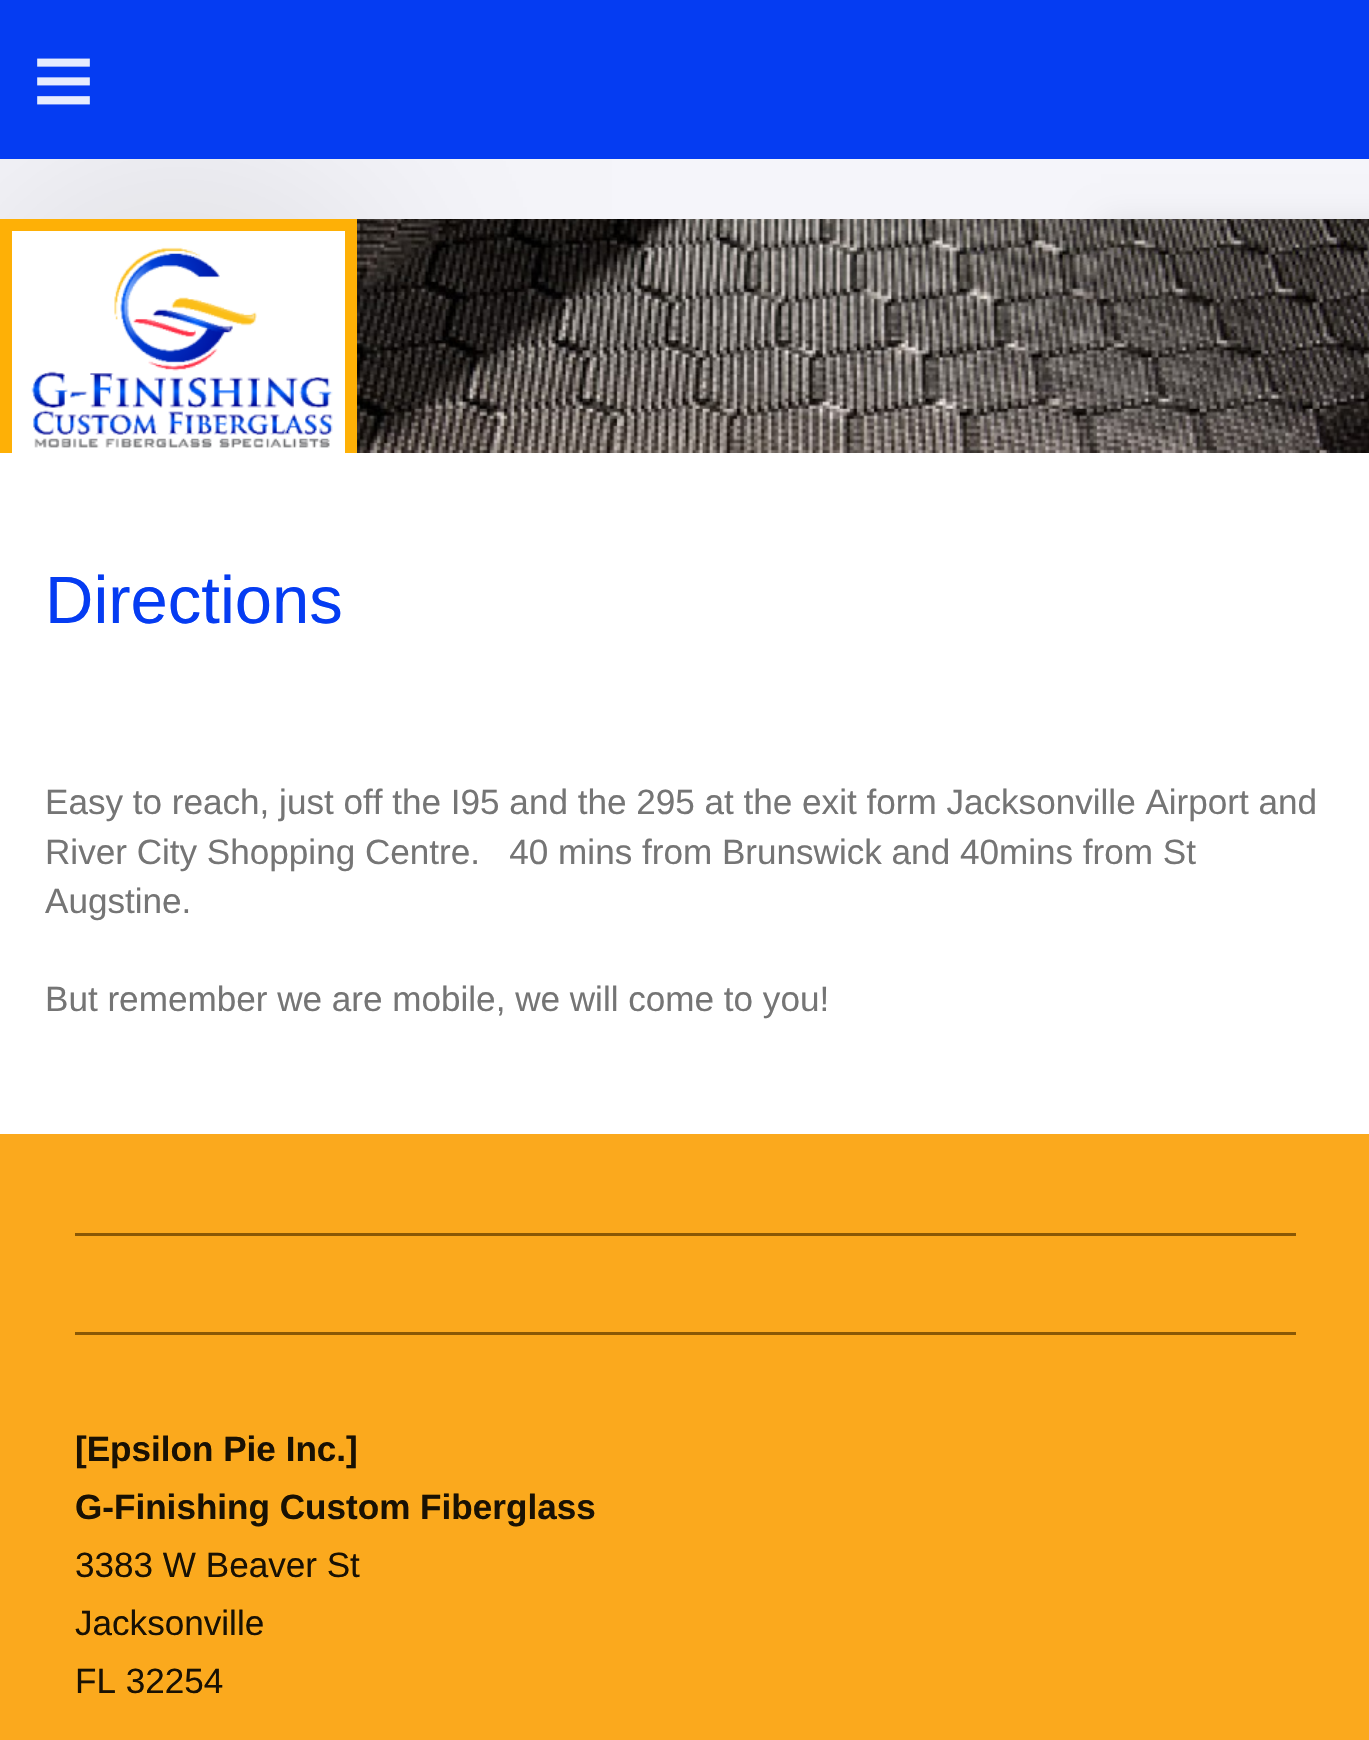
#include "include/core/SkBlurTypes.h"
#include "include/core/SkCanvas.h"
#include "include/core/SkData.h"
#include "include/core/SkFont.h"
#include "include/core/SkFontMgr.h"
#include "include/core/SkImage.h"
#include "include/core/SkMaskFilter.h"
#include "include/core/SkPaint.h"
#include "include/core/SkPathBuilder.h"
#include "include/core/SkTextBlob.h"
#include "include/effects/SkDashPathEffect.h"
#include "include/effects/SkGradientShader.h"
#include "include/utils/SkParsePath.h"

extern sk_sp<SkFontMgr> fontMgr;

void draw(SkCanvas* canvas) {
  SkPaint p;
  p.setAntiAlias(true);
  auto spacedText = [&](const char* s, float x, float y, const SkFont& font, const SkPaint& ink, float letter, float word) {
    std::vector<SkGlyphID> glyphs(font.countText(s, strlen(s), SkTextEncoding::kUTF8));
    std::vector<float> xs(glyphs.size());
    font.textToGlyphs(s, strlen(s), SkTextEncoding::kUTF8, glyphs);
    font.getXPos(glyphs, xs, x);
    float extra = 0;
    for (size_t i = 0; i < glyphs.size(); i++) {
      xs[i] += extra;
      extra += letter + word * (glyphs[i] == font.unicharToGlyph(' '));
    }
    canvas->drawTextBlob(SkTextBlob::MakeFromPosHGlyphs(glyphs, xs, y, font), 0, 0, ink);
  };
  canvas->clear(SkColorSetRGB(245, 245, 250));
  p.setColor(SkColorSetARGB(38, 0, 0, 0));
  p.setMaskFilter(SkMaskFilter::MakeBlur(kNormal_SkBlurStyle, 180));
  canvas->drawRect(SkRect::MakeLTRB(30, 219, 330, 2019), p);
  p.setMaskFilter(nullptr);
  p.setColor(SkColorSetRGB(5, 60, 242));
  canvas->drawRect(SkRect::MakeLTRB(0, 0, 1369, 159), p);
  p.setColor(SkColorSetARGB(20, 0, 0, 0));
  p.setMaskFilter(SkMaskFilter::MakeBlur(kNormal_SkBlurStyle, 15));
  canvas->drawRect(SkRect::MakeLTRB(1101, 219, 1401, 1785), p);
  p.setMaskFilter(nullptr);
  p.setColor(SK_ColorWHITE);
  canvas->drawRect(SkRect::MakeLTRB(0, 453, 1369, 1134), p);
  canvas->save();
  canvas->clipRect(SkRect::MakeLTRB(0, 219, 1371, 453));
  p.setStyle(SkPaint::kStroke_Style);
  p.setStrokeWidth(12);
  p.setColor(SkColorSetRGB(254, 176, 6));
  canvas->drawRect(SkRect::MakeLTRB(6, 225, 351, 459), p);
  canvas->restore();
  canvas->drawImageRect(SkImages::DeferredFromEncodedData(SkData::MakeFromFileName("images/1.png")), SkRect::MakeLTRB(12, 231, 345, 453), SkSamplingOptions());
  canvas->drawImageRect(SkImages::DeferredFromEncodedData(SkData::MakeFromFileName("images/2.png")), SkRect::MakeLTRB(357, 219, 1369, 453), SkSamplingOptions());
  p.setStyle(SkPaint::kFill_Style);
  p.setColor(SkColorSetRGB(251, 169, 29));
  canvas->drawRect(SkRect::MakeLTRB(0, 1134, 1369, 1740), p);
  p.setColor(SkColorSetRGB(137, 88, 5));
  canvas->drawRect(SkRect::MakeLTRB(75, 1233, 1296, 1236), p);
  canvas->drawRect(SkRect::MakeLTRB(75, 1332, 1296, 1335), p);
  SkFont font1(fontMgr->matchFamilyStyle("Liberation Sans", SkFontStyle::Normal()), 108);
  font1.setSubpixel(true);
  p.setColor(SkColorSetRGB(230, 236, 254));
  spacedText("≡", 32, 117, font1, p, 32, 0);
  SkFont font2(fontMgr->matchFamilyStyle("Liberation Sans", SkFontStyle::Normal()), 67);
  font2.setSubpixel(true);
  p.setColor(SkColorSetRGB(5, 60, 242));
  canvas->drawString("Directions", 45, 623, font2, p);
  SkFont font3(fontMgr->matchFamilyStyle("Liberation Sans", SkFontStyle::Normal()), 35.1f);
  font3.setSubpixel(true);
  p.setColor(SkColorSetRGB(117, 117, 117));
  canvas->drawString("Easy to reach, just off the I95 and the 295 at the exit form Jacksonville Airport and", 45, 814, font3, p);
  canvas->drawString("River City Shopping Centre.   40 mins from Brunswick and 40mins from St", 45, 864, font3, p);
  canvas->drawString("Augstine.", 45, 913, font3, p);
  canvas->drawString("But remember we are mobile, we will come to you!", 45, 1011, font3, p);
  SkFont font4(fontMgr->matchFamilyStyle("Liberation Sans", SkFontStyle::Bold()), 35.1f);
  font4.setSubpixel(true);
  p.setColor(SkColorSetRGB(25, 17, 3));
  canvas->drawString("[Epsilon Pie Inc.]", 75, 1461, font4, p);
  canvas->drawString("G-Finishing Custom Fiberglass", 75, 1519, font4, p);
  canvas->drawString("3383 W Beaver St", 75, 1577, font3, p);
  canvas->drawString("Jacksonville", 75, 1635, font3, p);
  canvas->drawString("FL 32254", 75, 1693, font3, p);
}
